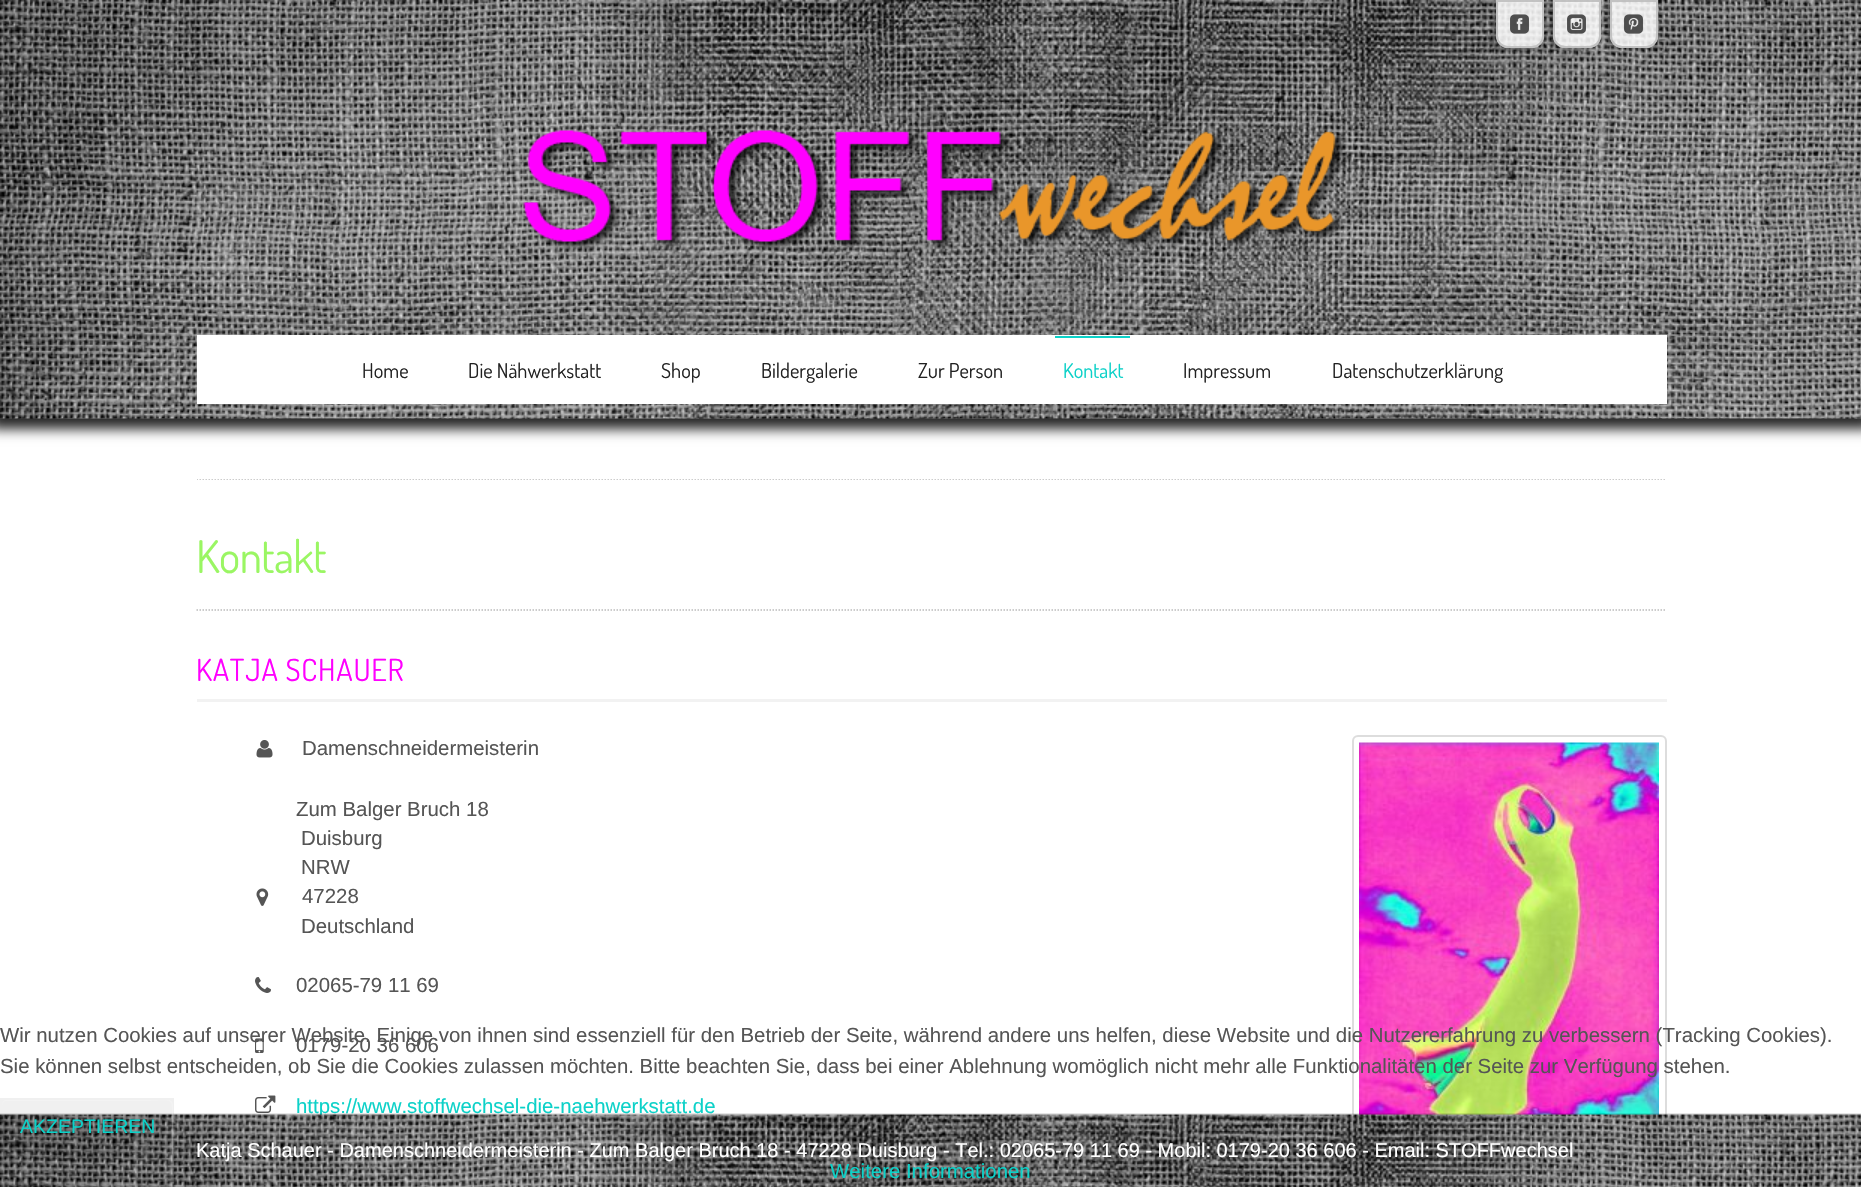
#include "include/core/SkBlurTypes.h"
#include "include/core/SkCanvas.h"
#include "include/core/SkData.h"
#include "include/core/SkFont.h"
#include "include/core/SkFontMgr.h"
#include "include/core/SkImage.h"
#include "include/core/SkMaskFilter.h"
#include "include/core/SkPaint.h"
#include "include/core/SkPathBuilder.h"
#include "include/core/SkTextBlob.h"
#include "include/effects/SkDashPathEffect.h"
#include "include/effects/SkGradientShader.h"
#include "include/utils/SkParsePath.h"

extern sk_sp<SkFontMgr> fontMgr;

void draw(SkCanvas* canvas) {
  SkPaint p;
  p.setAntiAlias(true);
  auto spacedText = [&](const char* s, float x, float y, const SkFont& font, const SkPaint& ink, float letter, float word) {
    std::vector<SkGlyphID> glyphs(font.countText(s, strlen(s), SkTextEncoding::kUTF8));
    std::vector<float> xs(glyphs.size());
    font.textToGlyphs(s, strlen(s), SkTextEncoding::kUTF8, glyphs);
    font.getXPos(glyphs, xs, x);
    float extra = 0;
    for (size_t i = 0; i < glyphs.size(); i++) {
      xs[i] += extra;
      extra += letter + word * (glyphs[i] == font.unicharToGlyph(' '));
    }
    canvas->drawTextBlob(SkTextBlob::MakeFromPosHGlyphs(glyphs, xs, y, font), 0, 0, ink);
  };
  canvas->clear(SK_ColorWHITE);
  p.setColor(SkColorSetARGB(217, 0, 0, 0));
  p.setMaskFilter(SkMaskFilter::MakeBlur(kNormal_SkBlurStyle, 6));
  canvas->drawRect(SkRect::MakeLTRB(-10, -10, 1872, 429), p);
  p.setMaskFilter(nullptr);
  canvas->drawImageRect(SkImages::DeferredFromEncodedData(SkData::MakeFromFileName("images/1.png")), SkRect::MakeLTRB(0, 0, 1861, 419), SkSamplingOptions());
  canvas->save();
  canvas->clipPath(SkPathBuilder(SkPathFillType::kEvenOdd).moveTo(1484, 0).lineTo(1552, 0).lineTo(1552, 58).lineTo(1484, 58).close().moveTo(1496, 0).lineTo(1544, 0).lineTo(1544, 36).cubicTo(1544, 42.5f, 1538.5f, 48, 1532, 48).lineTo(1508, 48).cubicTo(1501.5f, 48, 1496, 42.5f, 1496, 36).close().detach(), true);
  p.setColor(SkColorSetARGB(97, 0, 0, 0));
  p.setMaskFilter(SkMaskFilter::MakeBlur(kNormal_SkBlurStyle, 3));
  canvas->drawRoundRect(SkRect::MakeLTRB(1494, 0, 1542, 48), 12, 12, p);
  p.setMaskFilter(nullptr);
  canvas->restore();
  p.setColor(SkColorSetARGB(217, 255, 255, 255));
  canvas->drawPath(SkPathBuilder().moveTo(1496, 0).lineTo(1544, 0).lineTo(1544, 36).cubicTo(1544, 42.5f, 1538.5f, 48, 1532, 48).lineTo(1508, 48).cubicTo(1501.5f, 48, 1496, 42.5f, 1496, 36).close().detach(), p);
  p.setStyle(SkPaint::kStroke_Style);
  p.setStrokeWidth(2);
  p.setColor(SkColorSetARGB(217, 187, 187, 187));
  canvas->drawPath(SkPathBuilder().moveTo(1497, 1).lineTo(1543, 1).lineTo(1543, 36).cubicTo(1543, 42, 1538, 47, 1532, 47).lineTo(1508, 47).cubicTo(1502, 47, 1497, 42, 1497, 36).close().detach(), p);
  canvas->drawImageRect(SkImages::DeferredFromEncodedData(SkData::MakeFromFileName("images/2.png")), SkRect::MakeLTRB(1510, 14, 1529, 34), SkSamplingOptions());
  canvas->save();
  canvas->clipPath(SkPathBuilder(SkPathFillType::kEvenOdd).moveTo(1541, 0).lineTo(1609, 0).lineTo(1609, 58).lineTo(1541, 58).close().moveTo(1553, 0).lineTo(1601, 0).lineTo(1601, 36).cubicTo(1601, 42.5f, 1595.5f, 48, 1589, 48).lineTo(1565, 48).cubicTo(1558.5f, 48, 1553, 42.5f, 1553, 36).close().detach(), true);
  p.setStyle(SkPaint::kFill_Style);
  p.setColor(SkColorSetARGB(97, 0, 0, 0));
  p.setMaskFilter(SkMaskFilter::MakeBlur(kNormal_SkBlurStyle, 3));
  canvas->drawRoundRect(SkRect::MakeLTRB(1551, 0, 1599, 48), 12, 12, p);
  p.setMaskFilter(nullptr);
  canvas->restore();
  p.setColor(SkColorSetARGB(217, 255, 255, 255));
  canvas->drawPath(SkPathBuilder().moveTo(1553, 0).lineTo(1601, 0).lineTo(1601, 36).cubicTo(1601, 42.5f, 1595.5f, 48, 1589, 48).lineTo(1565, 48).cubicTo(1558.5f, 48, 1553, 42.5f, 1553, 36).close().detach(), p);
  p.setStyle(SkPaint::kStroke_Style);
  p.setColor(SkColorSetARGB(217, 187, 187, 187));
  canvas->drawPath(SkPathBuilder().moveTo(1554, 1).lineTo(1600, 1).lineTo(1600, 36).cubicTo(1600, 42, 1595, 47, 1589, 47).lineTo(1565, 47).cubicTo(1559, 47, 1554, 42, 1554, 36).close().detach(), p);
  canvas->drawImageRect(SkImages::DeferredFromEncodedData(SkData::MakeFromFileName("images/3.png")), SkRect::MakeLTRB(1567, 14, 1586, 34), SkSamplingOptions());
  canvas->save();
  canvas->clipPath(SkPathBuilder(SkPathFillType::kEvenOdd).moveTo(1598, 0).lineTo(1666, 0).lineTo(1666, 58).lineTo(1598, 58).close().moveTo(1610, 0).lineTo(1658, 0).lineTo(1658, 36).cubicTo(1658, 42.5f, 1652.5f, 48, 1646, 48).lineTo(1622, 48).cubicTo(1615.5f, 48, 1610, 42.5f, 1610, 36).close().detach(), true);
  p.setStyle(SkPaint::kFill_Style);
  p.setColor(SkColorSetARGB(97, 0, 0, 0));
  p.setMaskFilter(SkMaskFilter::MakeBlur(kNormal_SkBlurStyle, 3));
  canvas->drawRoundRect(SkRect::MakeLTRB(1608, 0, 1656, 48), 12, 12, p);
  p.setMaskFilter(nullptr);
  canvas->restore();
  p.setColor(SkColorSetARGB(217, 255, 255, 255));
  canvas->drawPath(SkPathBuilder().moveTo(1610, 0).lineTo(1658, 0).lineTo(1658, 36).cubicTo(1658, 42.5f, 1652.5f, 48, 1646, 48).lineTo(1622, 48).cubicTo(1615.5f, 48, 1610, 42.5f, 1610, 36).close().detach(), p);
  p.setStyle(SkPaint::kStroke_Style);
  p.setColor(SkColorSetARGB(217, 187, 187, 187));
  canvas->drawPath(SkPathBuilder().moveTo(1611, 1).lineTo(1657, 1).lineTo(1657, 36).cubicTo(1657, 42, 1652, 47, 1646, 47).lineTo(1622, 47).cubicTo(1616, 47, 1611, 42, 1611, 36).close().detach(), p);
  canvas->drawImageRect(SkImages::DeferredFromEncodedData(SkData::MakeFromFileName("images/4.png")), SkRect::MakeLTRB(1624, 14, 1643, 34), SkSamplingOptions());
  canvas->drawImageRect(SkImages::DeferredFromEncodedData(SkData::MakeFromFileName("images/5.png")), SkRect::MakeLTRB(523, 130, 1346, 252), SkSamplingOptions());
  p.setStyle(SkPaint::kFill_Style);
  p.setColor(SK_ColorWHITE);
  canvas->drawRect(SkRect::MakeLTRB(197, 335, 1667, 404), p);
  p.setColor(SkColorSetRGB(12, 209, 200));
  canvas->drawRect(SkRect::MakeLTRB(1055, 336, 1130, 338), p);
  canvas->save();
  canvas->clipRect(SkRect::MakeLTRB(197, 479, 1667, 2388));
  p.setStyle(SkPaint::kStroke_Style);
  p.setStrokeWidth(1.5f);
  p.setColor(SkColorSetRGB(187, 187, 187));
  p.setPathEffect(SkDashPathEffect::Make({{1.5f, 1.5f}}, 0));
  canvas->drawPath(SkPathBuilder().moveTo(196.5f, 479).lineTo(1666.5f, 479).detach(), p);
  p.setPathEffect(nullptr);
  canvas->restore();
  p.setPathEffect(SkDashPathEffect::Make({{1.5f, 1.5f}}, 0));
  canvas->drawPath(SkPathBuilder().moveTo(196.5f, 610).lineTo(1666.5f, 610).detach(), p);
  p.setPathEffect(nullptr);
  p.setStyle(SkPaint::kFill_Style);
  p.setColor(SkColorSetRGB(242, 242, 242));
  canvas->drawRect(SkRect::MakeLTRB(197, 699, 1667, 702), p);
  canvas->drawImageRect(SkImages::DeferredFromEncodedData(SkData::MakeFromFileName("images/6.png")), SkRect::MakeLTRB(256, 740, 273, 758), SkSamplingOptions());
  p.setStyle(SkPaint::kStroke_Style);
  p.setStrokeWidth(2);
  p.setColor(SkColorSetRGB(221, 221, 221));
  canvas->drawRoundRect(SkRect::MakeLTRB(1353, 736, 1666, 1175), 5, 5, p);
  canvas->drawImageRect(SkImages::DeferredFromEncodedData(SkData::MakeFromFileName("images/7.png")), SkRect::MakeLTRB(1359, 742, 1659, 1115), SkSamplingOptions());
  canvas->drawImageRect(SkImages::DeferredFromEncodedData(SkData::MakeFromFileName("images/8.png")), SkRect::MakeLTRB(256, 888, 269, 906), SkSamplingOptions());
  canvas->drawImageRect(SkImages::DeferredFromEncodedData(SkData::MakeFromFileName("images/9.png")), SkRect::MakeLTRB(255, 977, 271, 993), SkSamplingOptions());
  canvas->drawImageRect(SkImages::DeferredFromEncodedData(SkData::MakeFromFileName("images/10.png")), SkRect::MakeLTRB(255, 1038, 264, 1053), SkSamplingOptions());
  canvas->drawImageRect(SkImages::DeferredFromEncodedData(SkData::MakeFromFileName("images/11.png")), SkRect::MakeLTRB(255, 1095, 276, 1113), SkSamplingOptions());
  SkFont font1(fontMgr->matchFamilyStyle("Dosis", SkFontStyle::Normal()), 20.4f);
  font1.setSubpixel(true);
  p.setStyle(SkPaint::kFill_Style);
  p.setColor(SkColorSetRGB(34, 34, 34));
  canvas->drawString("Home", 362, 378, font1, p);
  canvas->drawString("Die Nähwerkstatt", 468, 378, font1, p);
  canvas->drawString("Shop", 661, 378, font1, p);
  canvas->drawString("Bildergalerie", 761, 378, font1, p);
  canvas->drawString("Zur Person", 918, 378, font1, p);
  p.setColor(SkColorSetRGB(12, 209, 200));
  canvas->drawString("Kontakt", 1063, 378, font1, p);
  p.setColor(SkColorSetRGB(34, 34, 34));
  canvas->drawString("Impressum", 1183, 378, font1, p);
  canvas->drawString("Datenschutzerklärung", 1332, 378, font1, p);
  SkFont font2(fontMgr->matchFamilyStyle("Dosis", SkFontStyle::Normal()), 45);
  font2.setSubpixel(true);
  p.setColor(SkColorSetRGB(154, 246, 99));
  spacedText("Kontakt", 196, 573, font2, p, -0.5f, 0);
  SkFont font3(fontMgr->matchFamilyStyle("Dosis", SkFontStyle::Normal()), 30.5f);
  font3.setSubpixel(true);
  p.setColor(SkColorSetRGB(255, 0, 255));
  spacedText("KATJA SCHAUER", 196, 681, font3, p, 0.75f, 0);
  SkFont font4(fontMgr->matchFamilyStyle("Liberation Sans", SkFontStyle::Normal()), 20.4f);
  font4.setSubpixel(true);
  p.setColor(SkColorSetRGB(85, 85, 85));
  canvas->drawString("Damenschneidermeisterin", 302, 755, font4, p);
  canvas->drawString("Zum Balger Bruch 18", 296, 816, font4, p);
  canvas->drawString("Duisburg", 301, 845, font4, p);
  canvas->drawString("NRW", 301, 874, font4, p);
  canvas->drawString("47228", 302, 903, font4, p);
  canvas->drawString("Deutschland", 301, 933, font4, p);
  canvas->drawString("02065-79 11 69", 296, 992, font4, p);
  canvas->drawString("0179-20 36 606", 296, 1052, font4, p);
  p.setColor(SkColorSetRGB(12, 209, 200));
  canvas->drawString("https://www.stoffwechsel-die-naehwerkstatt.de", 296, 1113, font4, p);
  p.setColor(SkColorSetRGB(85, 85, 85));
  canvas->drawString("Wir nutzen Cookies auf unserer Website. Einige von ihnen sind essenziell für den Betrieb der Seite, während andere uns helfen, diese Website und die Nutzererfahrung zu verbessern (Tracking Cookies).", 0, 1042, font4, p);
  canvas->drawString("Sie können selbst entscheiden, ob Sie die Cookies zulassen möchten. Bitte beachten Sie, dass bei einer Ablehnung womöglich nicht mehr alle Funktionalitäten der Seite zur Verfügung stehen.", 0, 1073, font4, p);
  canvas->drawImageRect(SkImages::DeferredFromEncodedData(SkData::MakeFromFileName("images/12.png")), SkRect::MakeLTRB(0, 1114, 1861, 1187), SkSamplingOptions());
  p.setColor(SkColorSetRGB(12, 209, 200));
  canvas->drawString("Weitere Informationen", 830, 1178, font4, p);
  p.setColor(SkColorSetARGB(26, 0, 0, 0));
  canvas->drawRect(SkRect::MakeLTRB(0, 1113, 1861, 1115), p);
  p.setColor(SkColorSetARGB(15, 0, 0, 0));
  canvas->drawRect(SkRect::MakeLTRB(0, 1098, 174, 1158), p);
  p.setColor(SkColorSetARGB(51, 255, 255, 255));
  canvas->drawPath(SkPathBuilder().moveTo(6, 1101).lineTo(141, 1101).cubicTo(175, 1101, 172, 1094, 172, 1122).lineTo(172, 1155).cubicTo(173, 1154, 173, 1153, 173, 1152).lineTo(173, 1105).cubicTo(173, 1102, 171, 1100, 168, 1100).lineTo(7, 1100).cubicTo(4, 1100, 2, 1102, 2, 1105).lineTo(2, 1106).cubicTo(2, 1103, 4, 1101, 6, 1101).close().detach(), p);
  SkFont font5(fontMgr->matchFamilyStyle("Liberation Sans", SkFontStyle::Normal()), 19.5f);
  font5.setSubpixel(true);
  p.setColor(SkColorSetRGB(12, 209, 200));
  canvas->drawString("AKZEPTIEREN", 20, 1133, font5, p);
  SkFont font6(fontMgr->matchFamilyStyle("Liberation Sans", SkFontStyle::Normal()), 20);
  font6.setSubpixel(true);
  p.setColor(SK_ColorWHITE);
  canvas->drawString("Katja Schauer - Damenschneidermeisterin - Zum Balger Bruch 18 - 47228 Duisburg - Tel.: 02065-79 11 69 - Mobil: 0179-20 36 606 - Email: STOFFwechsel", 196, 1157, font6, p);
}
